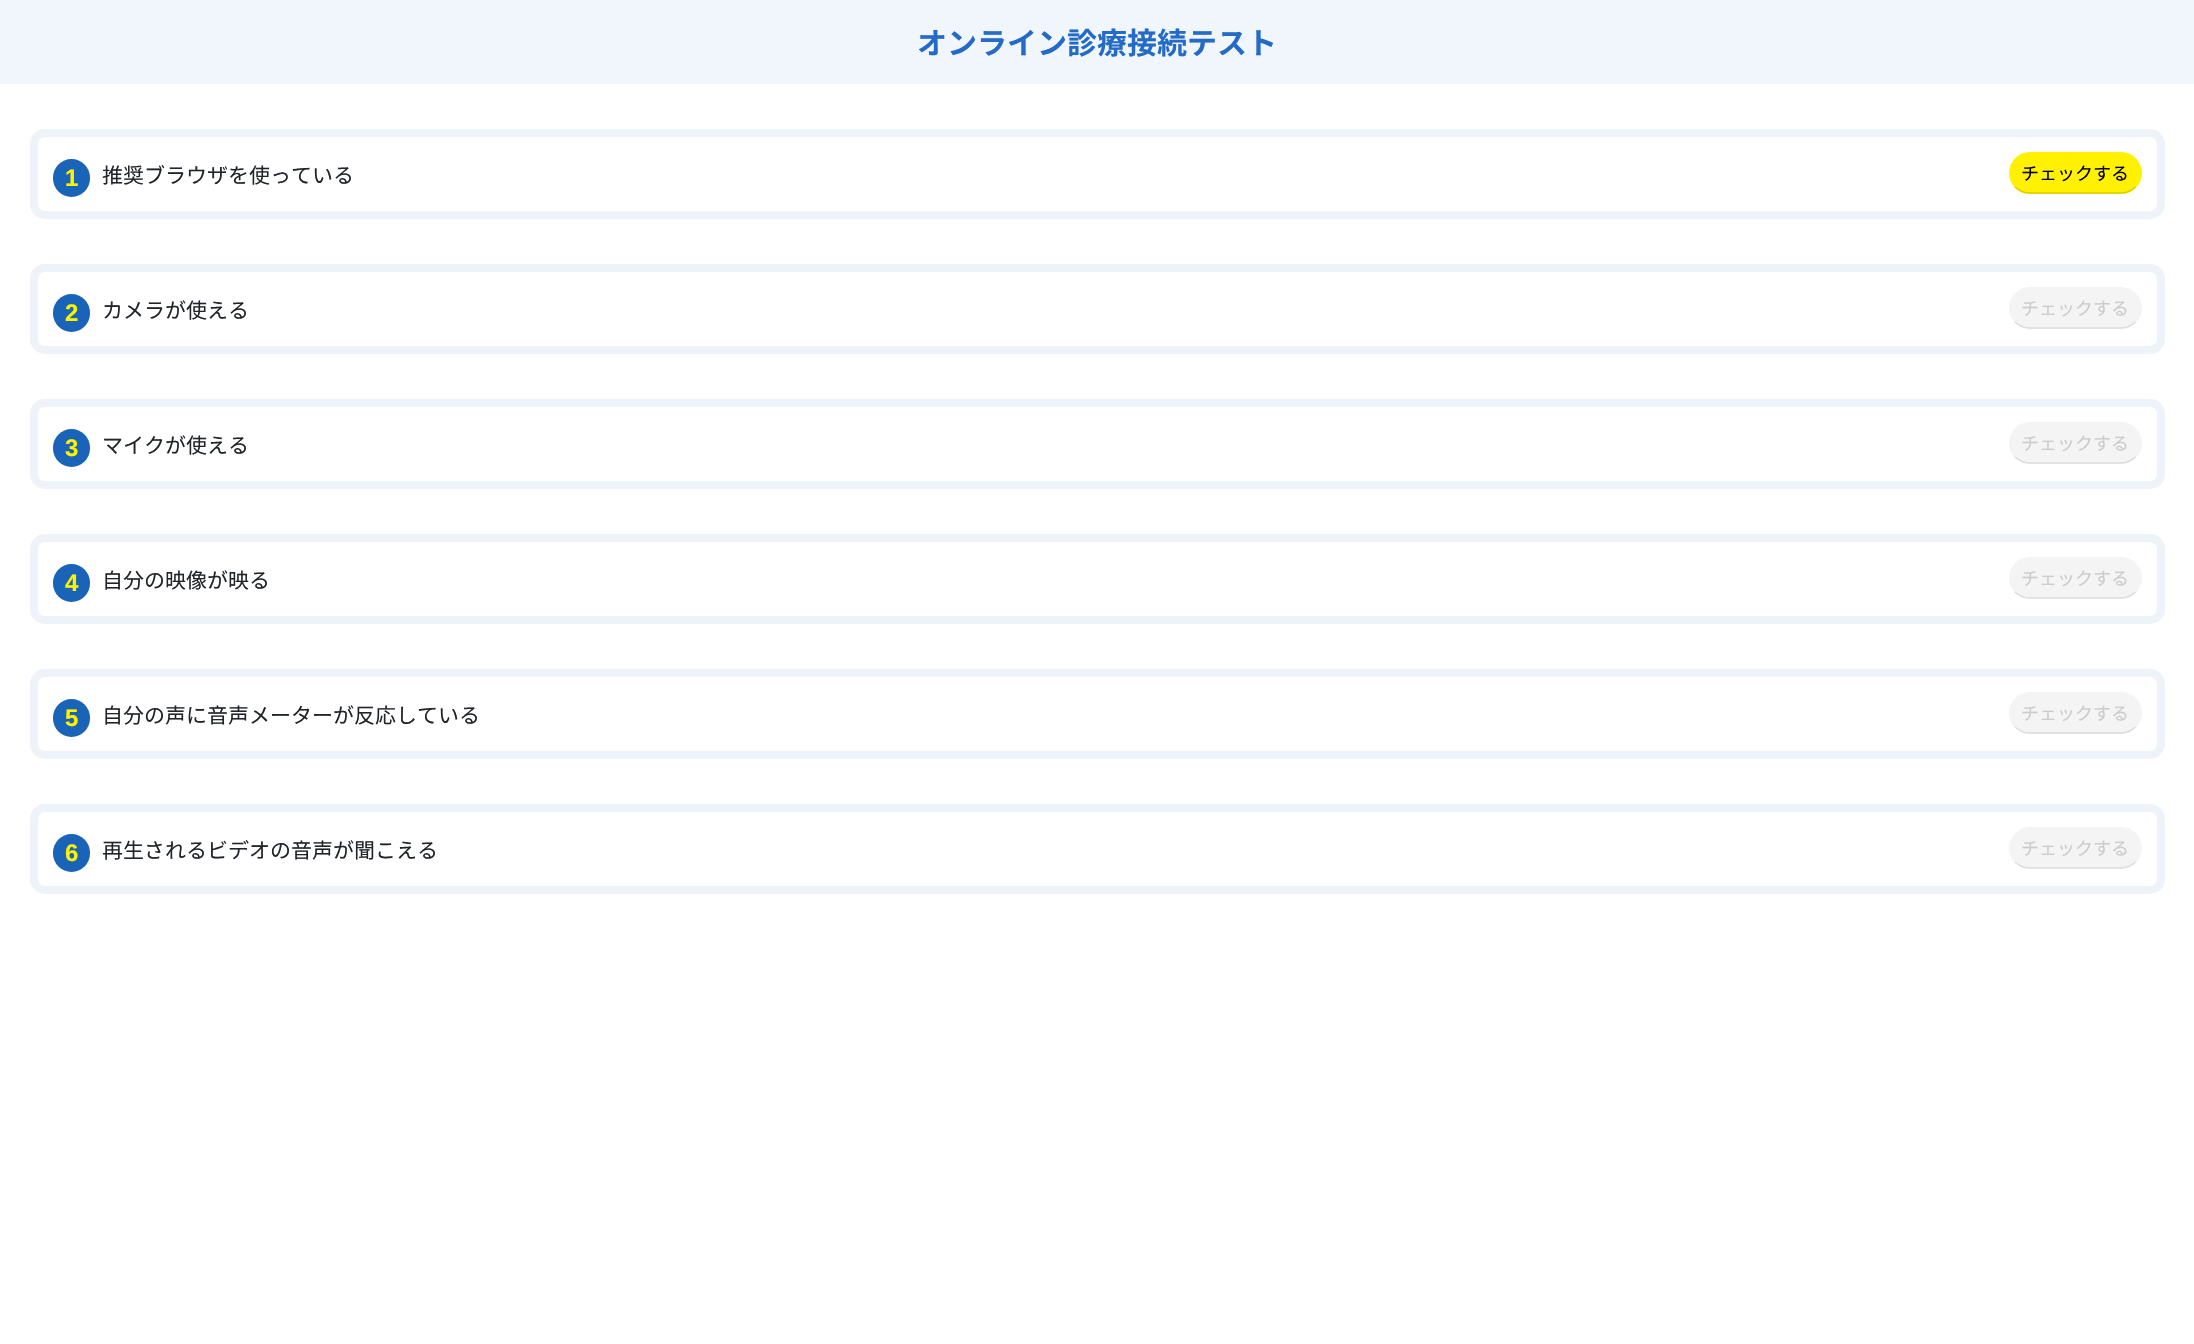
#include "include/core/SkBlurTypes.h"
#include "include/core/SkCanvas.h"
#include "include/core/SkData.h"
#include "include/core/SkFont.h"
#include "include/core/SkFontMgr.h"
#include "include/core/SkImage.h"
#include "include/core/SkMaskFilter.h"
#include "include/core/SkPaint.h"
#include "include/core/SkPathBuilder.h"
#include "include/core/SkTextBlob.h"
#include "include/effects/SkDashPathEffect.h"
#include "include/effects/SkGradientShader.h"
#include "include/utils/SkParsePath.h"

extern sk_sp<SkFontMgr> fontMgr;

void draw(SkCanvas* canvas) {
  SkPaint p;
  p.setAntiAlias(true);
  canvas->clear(SK_ColorWHITE);
  p.setColor(SkColorSetRGB(240, 246, 252));
  canvas->drawRect(SkRect::MakeLTRB(0, 0, 2194, 84), p);
  p.setStyle(SkPaint::kStroke_Style);
  p.setStrokeWidth(8);
  p.setColor(SkColorSetRGB(237, 243, 249));
  canvas->drawRoundRect(SkRect::MakeLTRB(34, 133, 2161, 215), 11, 11, p);
  p.setStyle(SkPaint::kFill_Style);
  p.setColor(SkColorSetRGB(25, 99, 184));
  canvas->drawRoundRect(SkRect::MakeLTRB(53, 159, 90, 197), 18.5f, 18.5f, p);
  p.setColor(SkColorSetRGB(255, 241, 0));
  canvas->drawRoundRect(SkRect::MakeLTRB(2009, 152, 2142, 194), 21, 21, p);
  p.setStyle(SkPaint::kStroke_Style);
  p.setStrokeWidth(1.5f);
  p.setColor(SkColorSetRGB(217, 205, 0));
  canvas->drawPath(SkPathBuilder().moveTo(2135.5f, 187).cubicTo(2131.5f, 190.5f, 2126.5f, 193, 2121, 193).lineTo(2029.5f, 193).cubicTo(2024, 193, 2019, 190.5f, 2015, 187).detach(), p);
  p.setStrokeWidth(8);
  p.setColor(SkColorSetRGB(237, 243, 249));
  canvas->drawRoundRect(SkRect::MakeLTRB(34, 268, 2161, 350), 11, 11, p);
  p.setStyle(SkPaint::kFill_Style);
  p.setColor(SkColorSetRGB(25, 99, 184));
  canvas->drawRoundRect(SkRect::MakeLTRB(53, 294, 90, 332), 18.5f, 18.5f, p);
  p.setColor(SkColorSetRGB(244, 244, 244));
  canvas->drawRoundRect(SkRect::MakeLTRB(2009, 287, 2142, 329), 21, 21, p);
  p.setStyle(SkPaint::kStroke_Style);
  p.setStrokeWidth(1.5f);
  p.setColor(SkColorSetRGB(221, 221, 221));
  canvas->drawPath(SkPathBuilder().moveTo(2135.5f, 322).cubicTo(2131.5f, 325.5f, 2126.5f, 328, 2121, 328).lineTo(2029.5f, 328).cubicTo(2024, 328, 2019, 325.5f, 2015, 322).detach(), p);
  p.setStrokeWidth(8);
  p.setColor(SkColorSetRGB(237, 243, 249));
  canvas->drawRoundRect(SkRect::MakeLTRB(34, 403, 2161, 485), 11, 11, p);
  p.setStyle(SkPaint::kFill_Style);
  p.setColor(SkColorSetRGB(25, 99, 184));
  canvas->drawRoundRect(SkRect::MakeLTRB(53, 429, 90, 467), 18.5f, 18.5f, p);
  p.setColor(SkColorSetRGB(244, 244, 244));
  canvas->drawRoundRect(SkRect::MakeLTRB(2009, 422, 2142, 464), 21, 21, p);
  p.setStyle(SkPaint::kStroke_Style);
  p.setStrokeWidth(1.5f);
  p.setColor(SkColorSetRGB(221, 221, 221));
  canvas->drawPath(SkPathBuilder().moveTo(2135.5f, 457).cubicTo(2131.5f, 460.5f, 2126.5f, 463, 2121, 463).lineTo(2029.5f, 463).cubicTo(2024, 463, 2019, 460.5f, 2015, 457).detach(), p);
  p.setStrokeWidth(8);
  p.setColor(SkColorSetRGB(237, 243, 249));
  canvas->drawRoundRect(SkRect::MakeLTRB(34, 538, 2161, 620), 11, 11, p);
  p.setStyle(SkPaint::kFill_Style);
  p.setColor(SkColorSetRGB(25, 99, 184));
  canvas->drawRoundRect(SkRect::MakeLTRB(53, 564, 90, 602), 18.5f, 18.5f, p);
  p.setColor(SkColorSetRGB(244, 244, 244));
  canvas->drawRoundRect(SkRect::MakeLTRB(2009, 557, 2142, 599), 21, 21, p);
  p.setStyle(SkPaint::kStroke_Style);
  p.setStrokeWidth(1.5f);
  p.setColor(SkColorSetRGB(221, 221, 221));
  canvas->drawPath(SkPathBuilder().moveTo(2135.5f, 592).cubicTo(2131.5f, 595.5f, 2126.5f, 598, 2121, 598).lineTo(2029.5f, 598).cubicTo(2024, 598, 2019, 595.5f, 2015, 592).detach(), p);
  p.setStrokeWidth(8);
  p.setColor(SkColorSetRGB(237, 243, 249));
  canvas->drawRoundRect(SkRect::MakeLTRB(34, 673, 2161, 755), 11, 11, p);
  p.setStyle(SkPaint::kFill_Style);
  p.setColor(SkColorSetRGB(25, 99, 184));
  canvas->drawRoundRect(SkRect::MakeLTRB(53, 699, 90, 737), 18.5f, 18.5f, p);
  p.setColor(SkColorSetRGB(244, 244, 244));
  canvas->drawRoundRect(SkRect::MakeLTRB(2009, 692, 2142, 734), 21, 21, p);
  p.setStyle(SkPaint::kStroke_Style);
  p.setStrokeWidth(1.5f);
  p.setColor(SkColorSetRGB(221, 221, 221));
  canvas->drawPath(SkPathBuilder().moveTo(2135.5f, 727).cubicTo(2131.5f, 730.5f, 2126.5f, 733, 2121, 733).lineTo(2029.5f, 733).cubicTo(2024, 733, 2019, 730.5f, 2015, 727).detach(), p);
  p.setStrokeWidth(8);
  p.setColor(SkColorSetRGB(237, 243, 249));
  canvas->drawRoundRect(SkRect::MakeLTRB(34, 808, 2161, 890), 11, 11, p);
  p.setStyle(SkPaint::kFill_Style);
  p.setColor(SkColorSetRGB(25, 99, 184));
  canvas->drawRoundRect(SkRect::MakeLTRB(53, 834, 90, 872), 18.5f, 18.5f, p);
  p.setColor(SkColorSetRGB(244, 244, 244));
  canvas->drawRoundRect(SkRect::MakeLTRB(2009, 827, 2142, 869), 21, 21, p);
  p.setStyle(SkPaint::kStroke_Style);
  p.setStrokeWidth(1.5f);
  p.setColor(SkColorSetRGB(221, 221, 221));
  canvas->drawPath(SkPathBuilder().moveTo(2135.5f, 862).cubicTo(2131.5f, 865.5f, 2126.5f, 868, 2121, 868).lineTo(2029.5f, 868).cubicTo(2024, 868, 2019, 865.5f, 2015, 862).detach(), p);
  SkFont font1(fontMgr->matchFamilyStyle("Noto Sans JP", SkFontStyle::Bold()), 30);
  font1.setSubpixel(true);
  p.setStyle(SkPaint::kFill_Style);
  p.setColor(SkColorSetRGB(36, 106, 199));
  canvas->drawString("オンライン診療接続テスト", 917, 54, font1, p);
  SkFont font2(fontMgr->matchFamilyStyle("Liberation Sans", SkFontStyle::Bold()), 24);
  font2.setSubpixel(true);
  p.setColor(SkColorSetRGB(255, 241, 0));
  canvas->drawString("1", 65, 186, font2, p);
  SkFont font3(fontMgr->matchFamilyStyle("Noto Sans JP", SkFontStyle::Normal()), 21);
  font3.setSubpixel(true);
  p.setColor(SkColorSetRGB(33, 37, 41));
  canvas->drawString("推奨ブラウザを使っている", 102, 183, font3, p);
  SkFont font4(fontMgr->matchFamilyStyle("Noto Sans JP", SkFontStyle::Normal()), 18);
  font4.setSubpixel(true);
  p.setColor(SK_ColorBLACK);
  canvas->drawString("チェックする", 2021, 180, font4, p);
  p.setColor(SkColorSetRGB(255, 241, 0));
  canvas->drawString("2", 65, 321, font2, p);
  p.setColor(SkColorSetRGB(33, 37, 41));
  canvas->drawString("カメラが使える", 102, 318, font3, p);
  p.setColor(SkColorSetRGB(204, 204, 204));
  canvas->drawString("チェックする", 2021, 315, font4, p);
  p.setColor(SkColorSetRGB(255, 241, 0));
  canvas->drawString("3", 65, 456, font2, p);
  p.setColor(SkColorSetRGB(33, 37, 41));
  canvas->drawString("マイクが使える", 102, 453, font3, p);
  p.setColor(SkColorSetRGB(204, 204, 204));
  canvas->drawString("チェックする", 2021, 450, font4, p);
  p.setColor(SkColorSetRGB(255, 241, 0));
  canvas->drawString("4", 65, 591, font2, p);
  p.setColor(SkColorSetRGB(33, 37, 41));
  canvas->drawString("自分の映像が映る", 102, 588, font3, p);
  p.setColor(SkColorSetRGB(204, 204, 204));
  canvas->drawString("チェックする", 2021, 585, font4, p);
  p.setColor(SkColorSetRGB(255, 241, 0));
  canvas->drawString("5", 65, 726, font2, p);
  p.setColor(SkColorSetRGB(33, 37, 41));
  canvas->drawString("自分の声に音声メーターが反応している", 102, 723, font3, p);
  p.setColor(SkColorSetRGB(204, 204, 204));
  canvas->drawString("チェックする", 2021, 720, font4, p);
  p.setColor(SkColorSetRGB(255, 241, 0));
  canvas->drawString("6", 65, 861, font2, p);
  p.setColor(SkColorSetRGB(33, 37, 41));
  canvas->drawString("再生されるビデオの音声が聞こえる", 102, 858, font3, p);
  p.setColor(SkColorSetRGB(204, 204, 204));
  canvas->drawString("チェックする", 2021, 855, font4, p);
}
